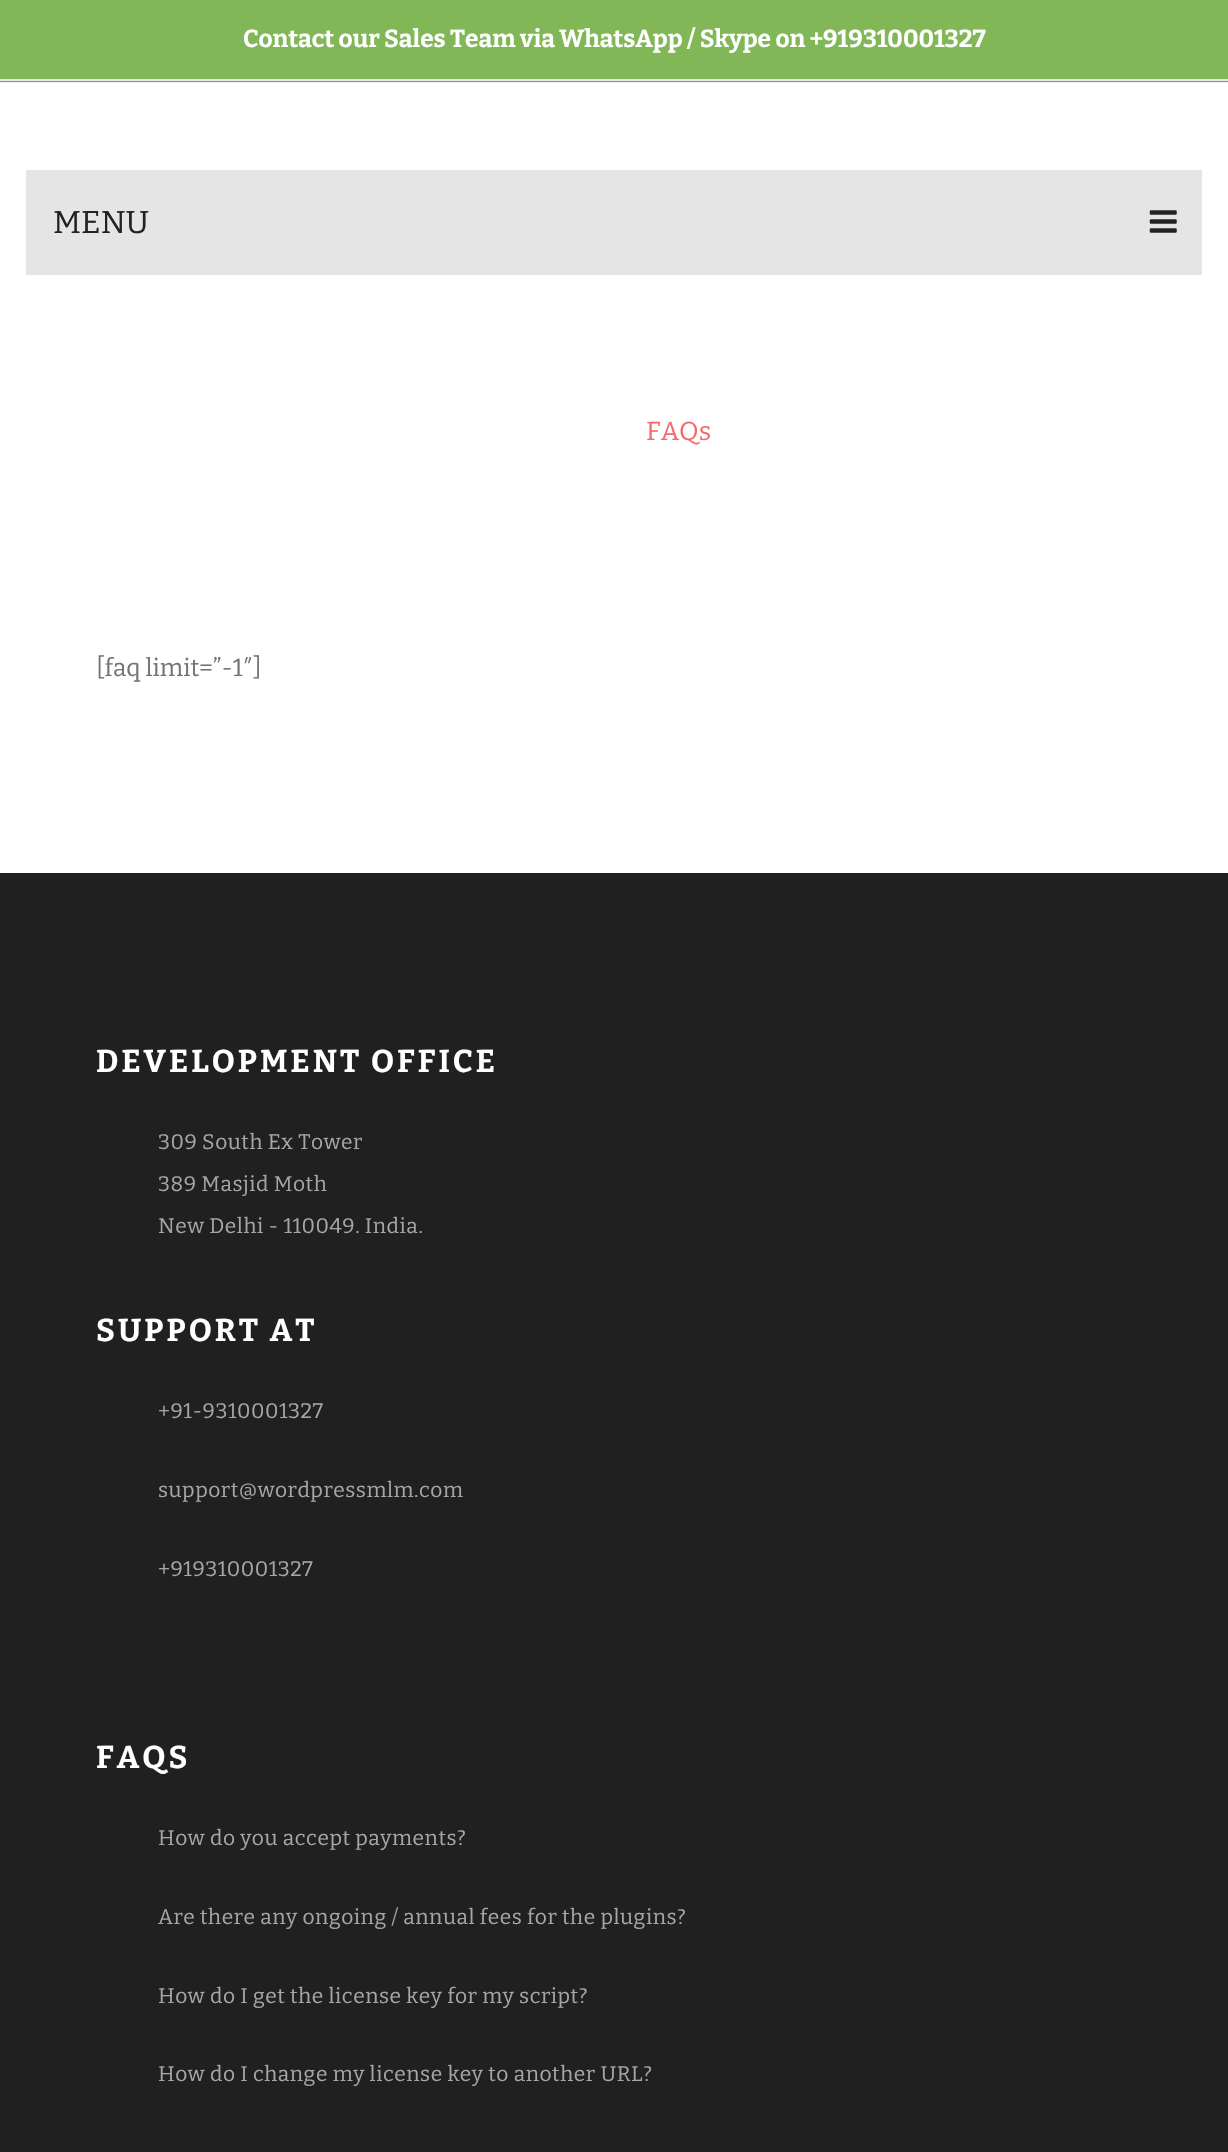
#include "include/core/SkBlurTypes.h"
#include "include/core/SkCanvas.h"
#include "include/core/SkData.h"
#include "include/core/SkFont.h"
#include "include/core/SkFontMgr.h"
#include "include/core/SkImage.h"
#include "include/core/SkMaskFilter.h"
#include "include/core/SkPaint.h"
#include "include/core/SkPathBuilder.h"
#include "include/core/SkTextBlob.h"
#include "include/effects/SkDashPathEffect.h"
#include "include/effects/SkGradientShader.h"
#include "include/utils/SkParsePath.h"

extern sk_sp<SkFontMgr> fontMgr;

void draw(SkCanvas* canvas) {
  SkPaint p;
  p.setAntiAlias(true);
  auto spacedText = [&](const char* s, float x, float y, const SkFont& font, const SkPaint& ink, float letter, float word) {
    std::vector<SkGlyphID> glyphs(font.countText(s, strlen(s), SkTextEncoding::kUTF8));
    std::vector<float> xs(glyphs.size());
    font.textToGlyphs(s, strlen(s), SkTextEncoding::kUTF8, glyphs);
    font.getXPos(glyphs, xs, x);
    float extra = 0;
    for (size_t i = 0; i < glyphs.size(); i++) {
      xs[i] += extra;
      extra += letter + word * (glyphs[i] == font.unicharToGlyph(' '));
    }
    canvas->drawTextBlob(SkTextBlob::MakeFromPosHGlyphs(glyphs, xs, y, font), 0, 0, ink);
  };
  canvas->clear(SK_ColorWHITE);
  p.setColor(SkColorSetRGB(240, 240, 240));
  canvas->drawRect(SkRect::MakeLTRB(0, 82, 1228, 83), p);
  p.setColor(SkColorSetRGB(129, 183, 87));
  canvas->drawRect(SkRect::MakeLTRB(0, 0, 1228, 79), p);
  p.setColor(SkColorSetRGB(121, 172, 82));
  canvas->drawRect(SkRect::MakeLTRB(0, 81, 1228, 82), p);
  p.setColor(SkColorSetRGB(229, 229, 229));
  canvas->drawRect(SkRect::MakeLTRB(0, 79, 1228, 81), p);
  canvas->drawRect(SkRect::MakeLTRB(26, 170, 1202, 275), p);
  canvas->drawImageRect(SkImages::DeferredFromEncodedData(SkData::MakeFromFileName("images/1.png")), SkRect::MakeLTRB(1149, 210, 1177, 233), SkSamplingOptions());
  p.setColor(SkColorSetRGB(32, 32, 32));
  canvas->drawRect(SkRect::MakeLTRB(0, 873, 1228, 2152), p);
  SkFont font1(fontMgr->matchFamilyStyle("Bitter", SkFontStyle::Bold()), 24.5f);
  font1.setSubpixel(true);
  p.setColor(SK_ColorWHITE);
  canvas->drawString("Contact our Sales Team via WhatsApp / Skype on +919310001327", 243, 47, font1, p);
  SkFont font2(fontMgr->matchFamilyStyle("Bitter", SkFontStyle::Normal()), 31.5f);
  font2.setSubpixel(true);
  p.setColor(SkColorSetRGB(34, 34, 34));
  canvas->drawString("MENU", 53, 233, font2, p);
  SkFont font3(fontMgr->matchFamilyStyle("Bitter", SkFontStyle::Normal()), 26);
  font3.setSubpixel(true);
  p.setColor(SkColorSetRGB(243, 107, 108));
  canvas->drawString("FAQs", 646, 440, font3, p);
  SkFont font4(fontMgr->matchFamilyStyle("Bitter", SkFontStyle::Normal()), 24.5f);
  font4.setSubpixel(true);
  p.setColor(SkColorSetRGB(116, 116, 116));
  canvas->drawString("[faq limit=”-1″]", 96, 676, font4, p);
  SkFont font5(fontMgr->matchFamilyStyle("Bitter", SkFontStyle::Bold()), 31.5f);
  font5.setSubpixel(true);
  p.setColor(SK_ColorWHITE);
  spacedText("DEVELOPMENT OFFICE", 96, 1072, font5, p, 3, 0);
  SkFont font6(fontMgr->matchFamilyStyle("Bitter", SkFontStyle::Normal()), 21);
  font6.setSubpixel(true);
  p.setColor(SkColorSetRGB(166, 166, 166));
  spacedText("309 South Ex Tower", 158, 1149, font6, p, 0.53f, 0);
  spacedText("389 Masjid Moth", 158, 1191, font6, p, 0.53f, 0);
  spacedText("New Delhi - 110049. India.", 158, 1233, font6, p, 0.53f, 0);
  p.setColor(SK_ColorWHITE);
  spacedText("SUPPORT AT", 96, 1341, font5, p, 3, 0);
  p.setColor(SkColorSetRGB(166, 166, 166));
  spacedText("+91-9310001327", 158, 1418, font6, p, 0.53f, 0);
  spacedText("support@wordpressmlm.com", 158, 1497, font6, p, 0.53f, 0);
  spacedText("+919310001327", 158, 1576, font6, p, 0.53f, 0);
  p.setColor(SK_ColorWHITE);
  spacedText("FAQS", 96, 1768, font5, p, 3, 0);
  p.setColor(SkColorSetRGB(166, 166, 166));
  spacedText("How do you accept payments?", 158, 1845, font6, p, 0.53f, 0);
  spacedText("Are there any ongoing / annual fees for the plugins?", 158, 1924, font6, p, 0.53f, 0);
  spacedText("How do I get the license key for my script?", 158, 2003, font6, p, 0.53f, 0);
  spacedText("How do I change my license key to another URL?", 158, 2081, font6, p, 0.53f, 0);
}
